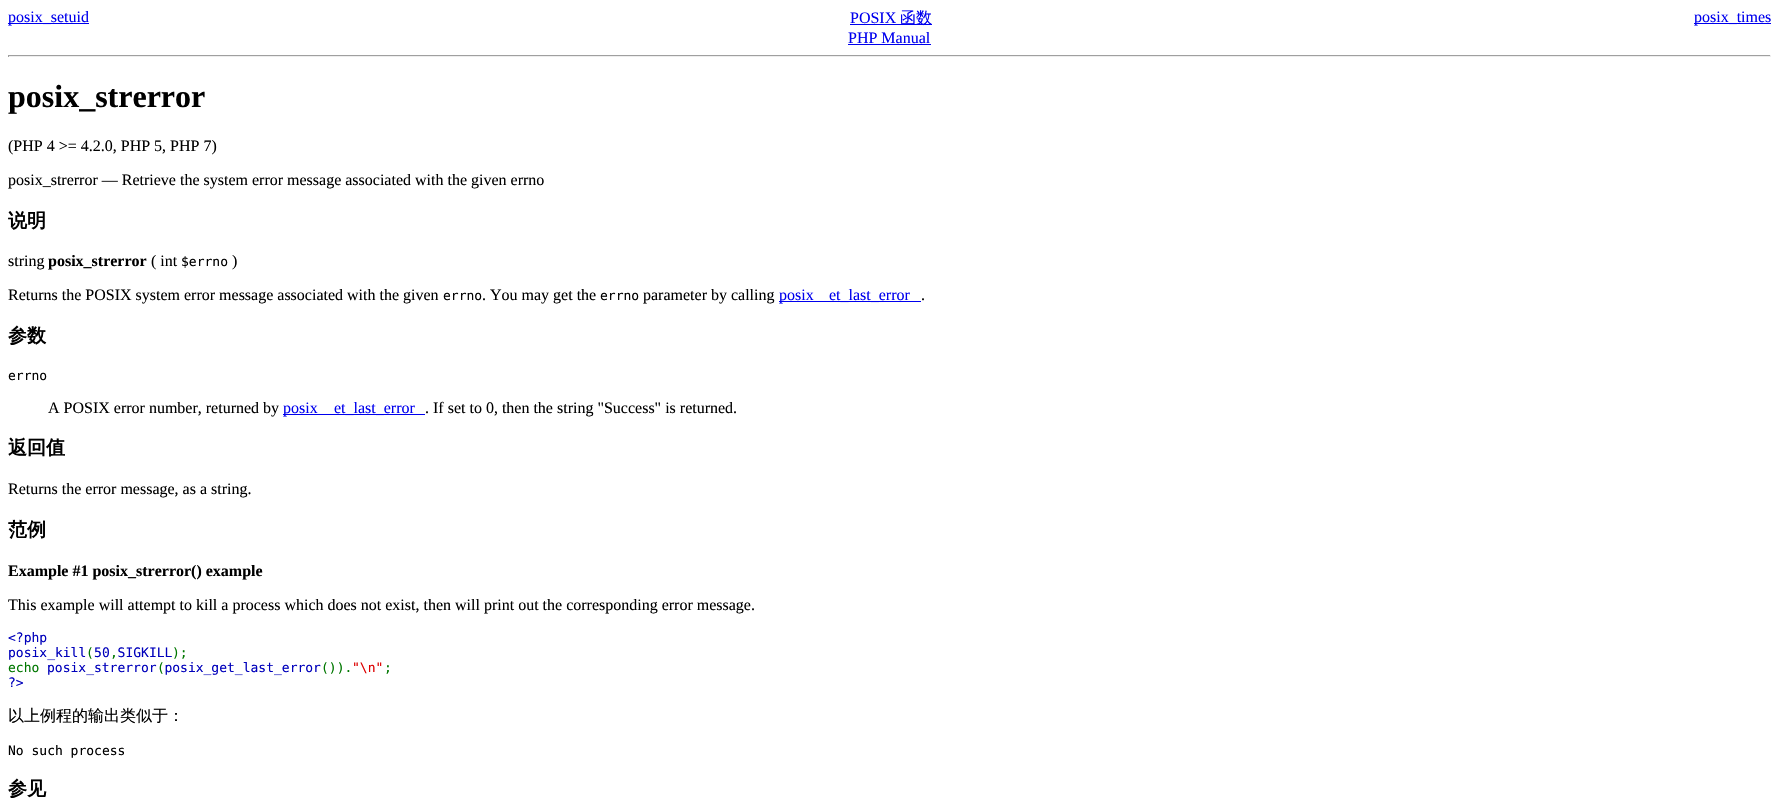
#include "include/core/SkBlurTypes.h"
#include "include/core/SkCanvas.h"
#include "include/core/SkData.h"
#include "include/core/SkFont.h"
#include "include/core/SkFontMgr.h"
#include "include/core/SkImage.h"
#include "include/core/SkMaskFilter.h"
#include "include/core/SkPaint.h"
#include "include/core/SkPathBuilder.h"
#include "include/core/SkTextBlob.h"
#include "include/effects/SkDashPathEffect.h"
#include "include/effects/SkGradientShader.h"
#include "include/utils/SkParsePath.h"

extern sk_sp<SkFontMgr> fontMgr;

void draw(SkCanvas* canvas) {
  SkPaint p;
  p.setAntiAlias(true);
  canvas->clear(SK_ColorWHITE);
  p.setColor(SkColorSetRGB(0, 0, 238));
  canvas->drawRect(SkRect::MakeLTRB(8, 23, 89, 24), p);
  canvas->drawRect(SkRect::MakeLTRB(850, 24, 932, 25), p);
  canvas->drawRect(SkRect::MakeLTRB(1694, 23, 1771, 24), p);
  canvas->drawRect(SkRect::MakeLTRB(848, 44, 931, 45), p);
  p.setColor(SkColorSetRGB(159, 159, 159));
  canvas->drawRect(SkRect::MakeLTRB(8, 55, 1771, 56), p);
  p.setColor(SkColorSetRGB(238, 238, 238));
  canvas->drawRect(SkRect::MakeLTRB(1770, 55, 1771, 57), p);
  canvas->drawRect(SkRect::MakeLTRB(8, 56, 1771, 57), p);
  p.setColor(SkColorSetRGB(159, 159, 159));
  canvas->drawRect(SkRect::MakeLTRB(8, 55, 9, 57), p);
  p.setColor(SkColorSetRGB(0, 0, 238));
  canvas->drawRect(SkRect::MakeLTRB(779, 301, 921, 302), p);
  canvas->drawRect(SkRect::MakeLTRB(283, 414, 425, 415), p);
  SkFont font1(fontMgr->matchFamilyStyle("Liberation Serif", SkFontStyle::Normal()), 16);
  font1.setSubpixel(true);
  canvas->drawString("posix_setuid", 8, 22, font1, p);
  canvas->drawString("POSIX", 850, 23, font1, p);
  SkFont font2(fontMgr->matchFamilyStyle("WenQuanYi Zen Hei", SkFontStyle(500, SkFontStyle::kNormal_Width, SkFontStyle::kUpright_Slant)), 16);
  font2.setSubpixel(true);
  canvas->drawString("函数", 900, 23, font2, p);
  canvas->drawString("posix_times", 1694, 22, font1, p);
  canvas->drawString("PHP Manual", 848, 43, font1, p);
  SkFont font3(fontMgr->matchFamilyStyle("Liberation Serif", SkFontStyle::Bold()), 32);
  font3.setSubpixel(true);
  p.setColor(SK_ColorBLACK);
  canvas->drawString("posix_strerror", 8, 107, font3, p);
  canvas->drawString("(PHP 4 >= 4.2.0, PHP 5, PHP 7)", 8, 151, font1, p);
  canvas->drawString("posix_strerror — Retrieve the system error message associated with the given errno", 8, 185, font1, p);
  SkFont font4(fontMgr->matchFamilyStyle("WenQuanYi Zen Hei", SkFontStyle::Bold()), 19);
  font4.setSubpixel(true);
  canvas->drawString("说明", 8, 227, font4, p);
  canvas->drawString("string", 8, 266, font1, p);
  SkFont font5(fontMgr->matchFamilyStyle("Liberation Serif", SkFontStyle::Bold()), 16);
  font5.setSubpixel(true);
  canvas->drawString("posix_strerror", 48, 266, font5, p);
  canvas->drawString("( int", 151, 266, font1, p);
  SkFont font6(fontMgr->matchFamilyStyle("DejaVu Sans Mono", SkFontStyle::Normal()), 13);
  font6.setSubpixel(true);
  canvas->drawString("$errno", 181, 266, font6, p);
  canvas->drawString(")", 232, 266, font1, p);
  canvas->drawString("Returns the POSIX system error message associated with the given", 8, 300, font1, p);
  canvas->drawString("errno", 443, 300, font6, p);
  canvas->drawString(". You may get the", 482, 300, font1, p);
  canvas->drawString("errno", 600, 300, font6, p);
  canvas->drawString("parameter by calling", 643, 300, font1, p);
  p.setColor(SkColorSetRGB(0, 0, 238));
  canvas->drawString("posix", 779, 300, font1, p);
  canvas->drawString("et_last_error", 829, 300, font1, p);
  p.setColor(SK_ColorBLACK);
  canvas->drawString(".", 921, 300, font1, p);
  canvas->drawString("参数", 8, 342, font4, p);
  canvas->drawString("errno", 8, 380, font6, p);
  canvas->drawString("A POSIX error number, returned by", 48, 413, font1, p);
  p.setColor(SkColorSetRGB(0, 0, 238));
  canvas->drawString("posix", 283, 413, font1, p);
  canvas->drawString("et_last_error", 334, 413, font1, p);
  p.setColor(SK_ColorBLACK);
  canvas->drawString(". If set to 0, then the string \"Success\" is returned.", 425, 413, font1, p);
  canvas->drawString("返回值", 8, 454, font4, p);
  canvas->drawString("Returns the error message, as a string.", 8, 494, font1, p);
  canvas->drawString("范例", 8, 536, font4, p);
  canvas->drawString("Example #1 posix_strerror() example", 8, 576, font5, p);
  canvas->drawString("This example will attempt to kill a process which does not exist, then will print out the corresponding error message.", 8, 610, font1, p);
  p.setColor(SkColorSetRGB(0, 0, 187));
  canvas->drawString("<?php", 8, 642, font6, p);
  canvas->drawString("posix_kill 50 SIGKILL", 8, 657, font6, p);
  p.setColor(SkColorSetRGB(0, 119, 0));
  canvas->drawString("(", 86, 657, font6, p);
  canvas->drawString(",", 110, 657, font6, p);
  canvas->drawString(");", 172, 657, font6, p);
  canvas->drawString("echo", 8, 672, font6, p);
  p.setColor(SkColorSetRGB(0, 0, 187));
  canvas->drawString("posix_strerror posix_get_last_error", 47, 672, font6, p);
  p.setColor(SkColorSetRGB(0, 119, 0));
  canvas->drawString("(", 157, 672, font6, p);
  canvas->drawString("()).", 321, 672, font6, p);
  p.setColor(SkColorSetRGB(221, 0, 0));
  canvas->drawString("\"\\n\"", 352, 672, font6, p);
  p.setColor(SkColorSetRGB(0, 119, 0));
  canvas->drawString(";", 384, 672, font6, p);
  p.setColor(SkColorSetRGB(0, 0, 187));
  canvas->drawString("?>", 8, 687, font6, p);
  p.setColor(SK_ColorBLACK);
  canvas->drawString("以上例程的输出类似于：", 8, 721, font2, p);
  canvas->drawString("No such process", 8, 755, font6, p);
  canvas->drawString("参见", 8, 795, font4, p);
}
